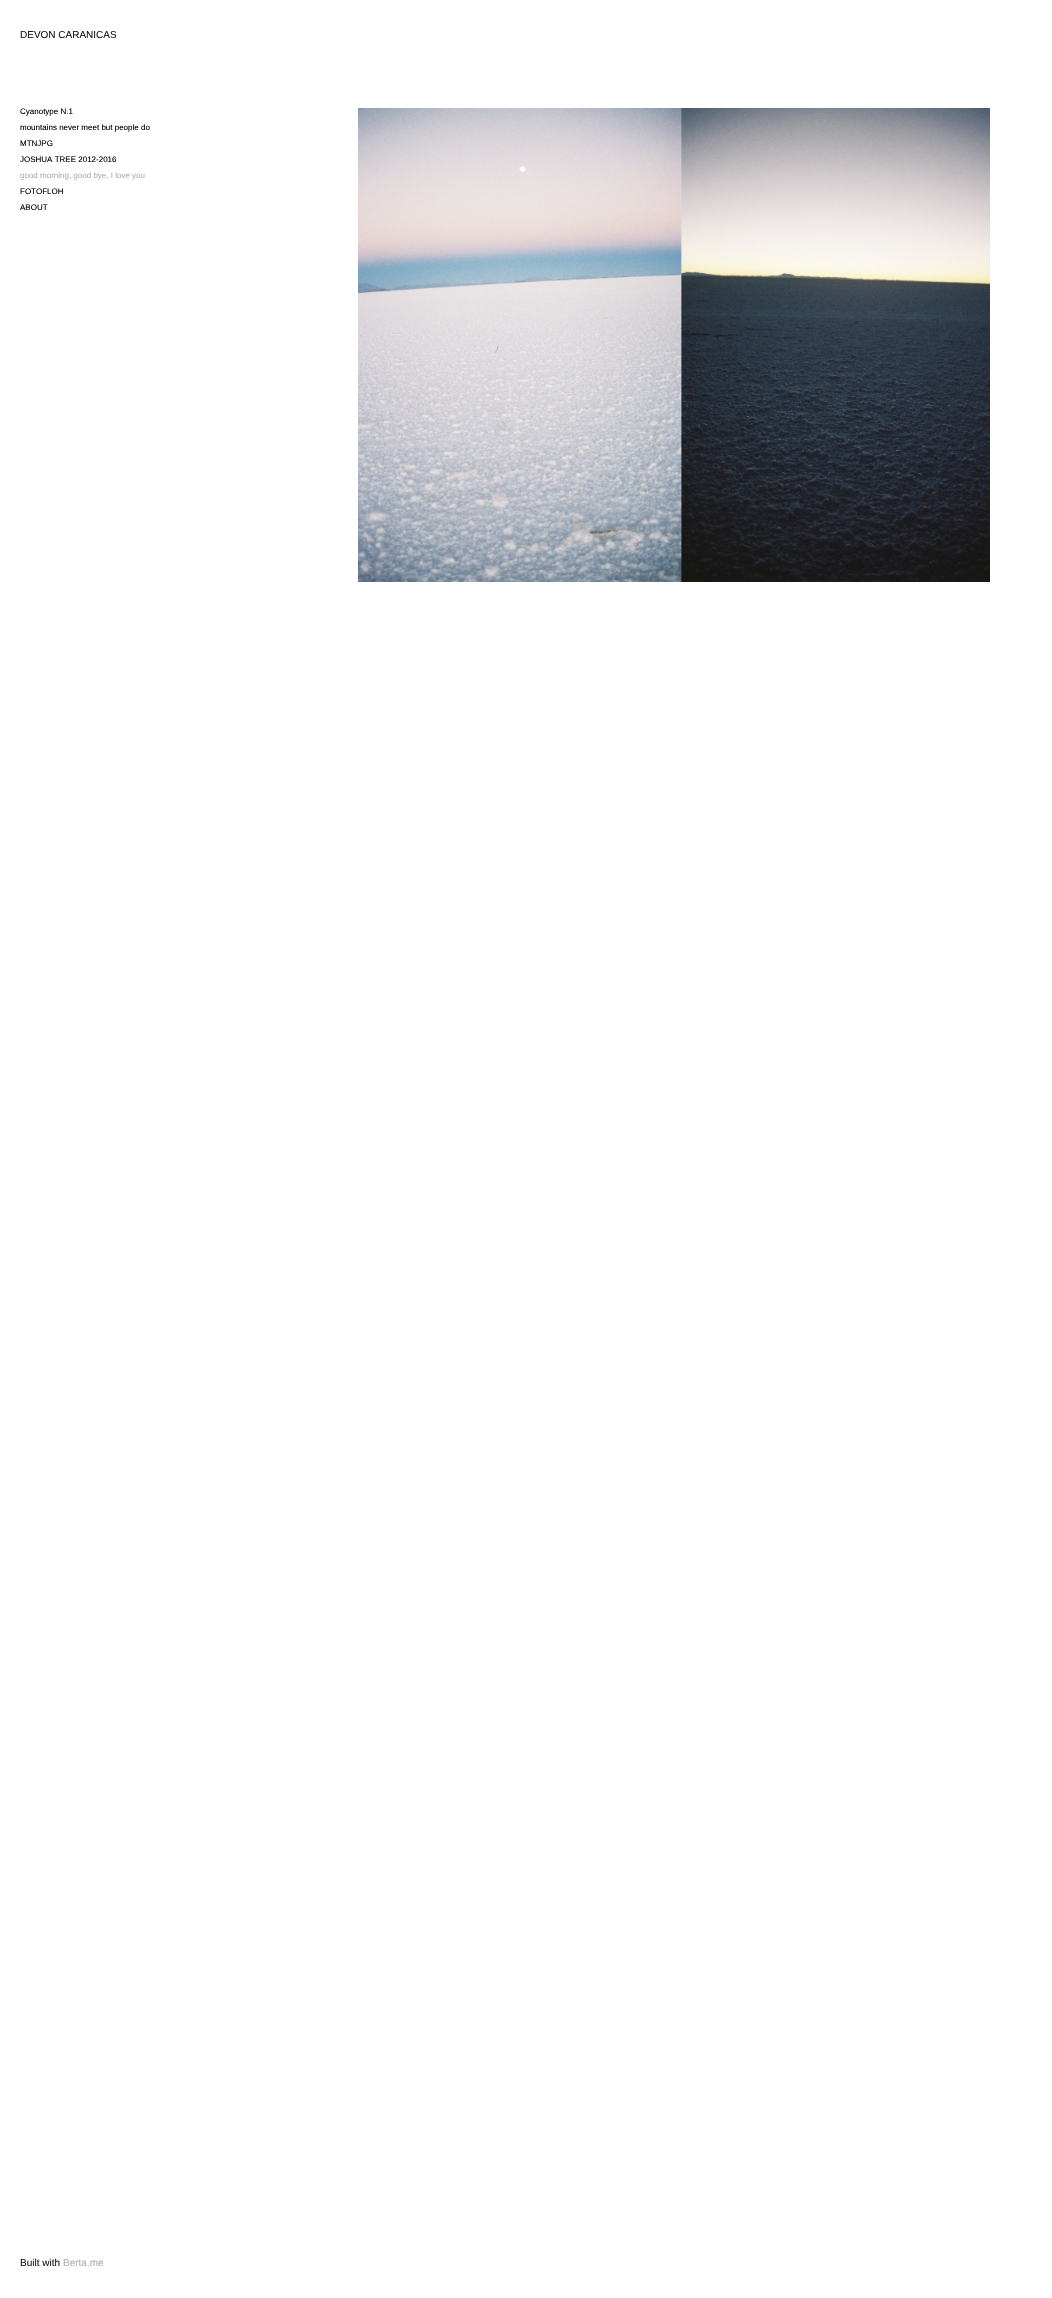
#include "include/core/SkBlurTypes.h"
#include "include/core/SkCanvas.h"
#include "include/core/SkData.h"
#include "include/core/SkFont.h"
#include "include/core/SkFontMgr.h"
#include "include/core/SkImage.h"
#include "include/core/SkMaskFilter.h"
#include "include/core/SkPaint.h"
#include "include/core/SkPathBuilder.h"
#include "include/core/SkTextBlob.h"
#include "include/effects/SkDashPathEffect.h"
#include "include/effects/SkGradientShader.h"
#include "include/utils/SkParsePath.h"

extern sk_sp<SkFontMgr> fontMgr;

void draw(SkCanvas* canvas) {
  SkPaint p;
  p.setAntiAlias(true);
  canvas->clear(SK_ColorWHITE);
  canvas->drawImageRect(SkImages::DeferredFromEncodedData(SkData::MakeFromFileName("images/1.png")), SkRect::MakeLTRB(358, 108, 990, 582), SkSamplingOptions());
  SkFont font1(fontMgr->matchFamilyStyle("Liberation Sans", SkFontStyle::Normal()), 10);
  font1.setSubpixel(true);
  p.setColor(SkColorSetRGB(26, 26, 26));
  canvas->drawString("DEVON CARANICAS", 20, 38, font1, p);
  SkFont font2(fontMgr->matchFamilyStyle("Liberation Sans", SkFontStyle::Normal()), 8);
  font2.setSubpixel(true);
  p.setColor(SK_ColorBLACK);
  canvas->drawString("Cyanotype N.1", 20, 114, font2, p);
  canvas->drawString("mountains never meet but people do", 20, 130, font2, p);
  canvas->drawString("MTNJPG", 20, 146, font2, p);
  canvas->drawString("JOSHUA TREE 2012-2016", 20, 162, font2, p);
  p.setColor(SkColorSetRGB(176, 174, 174));
  canvas->drawString("good morning, good bye, I love you", 20, 178, font2, p);
  p.setColor(SK_ColorBLACK);
  canvas->drawString("FOTOFLOH", 20, 194, font2, p);
  canvas->drawString("ABOUT", 20, 210, font2, p);
  p.setColor(SkColorSetRGB(26, 26, 26));
  canvas->drawString("Built with", 20, 2266, font1, p);
  p.setColor(SkColorSetRGB(176, 174, 174));
  canvas->drawString("Berta.me", 63, 2266, font1, p);
}
